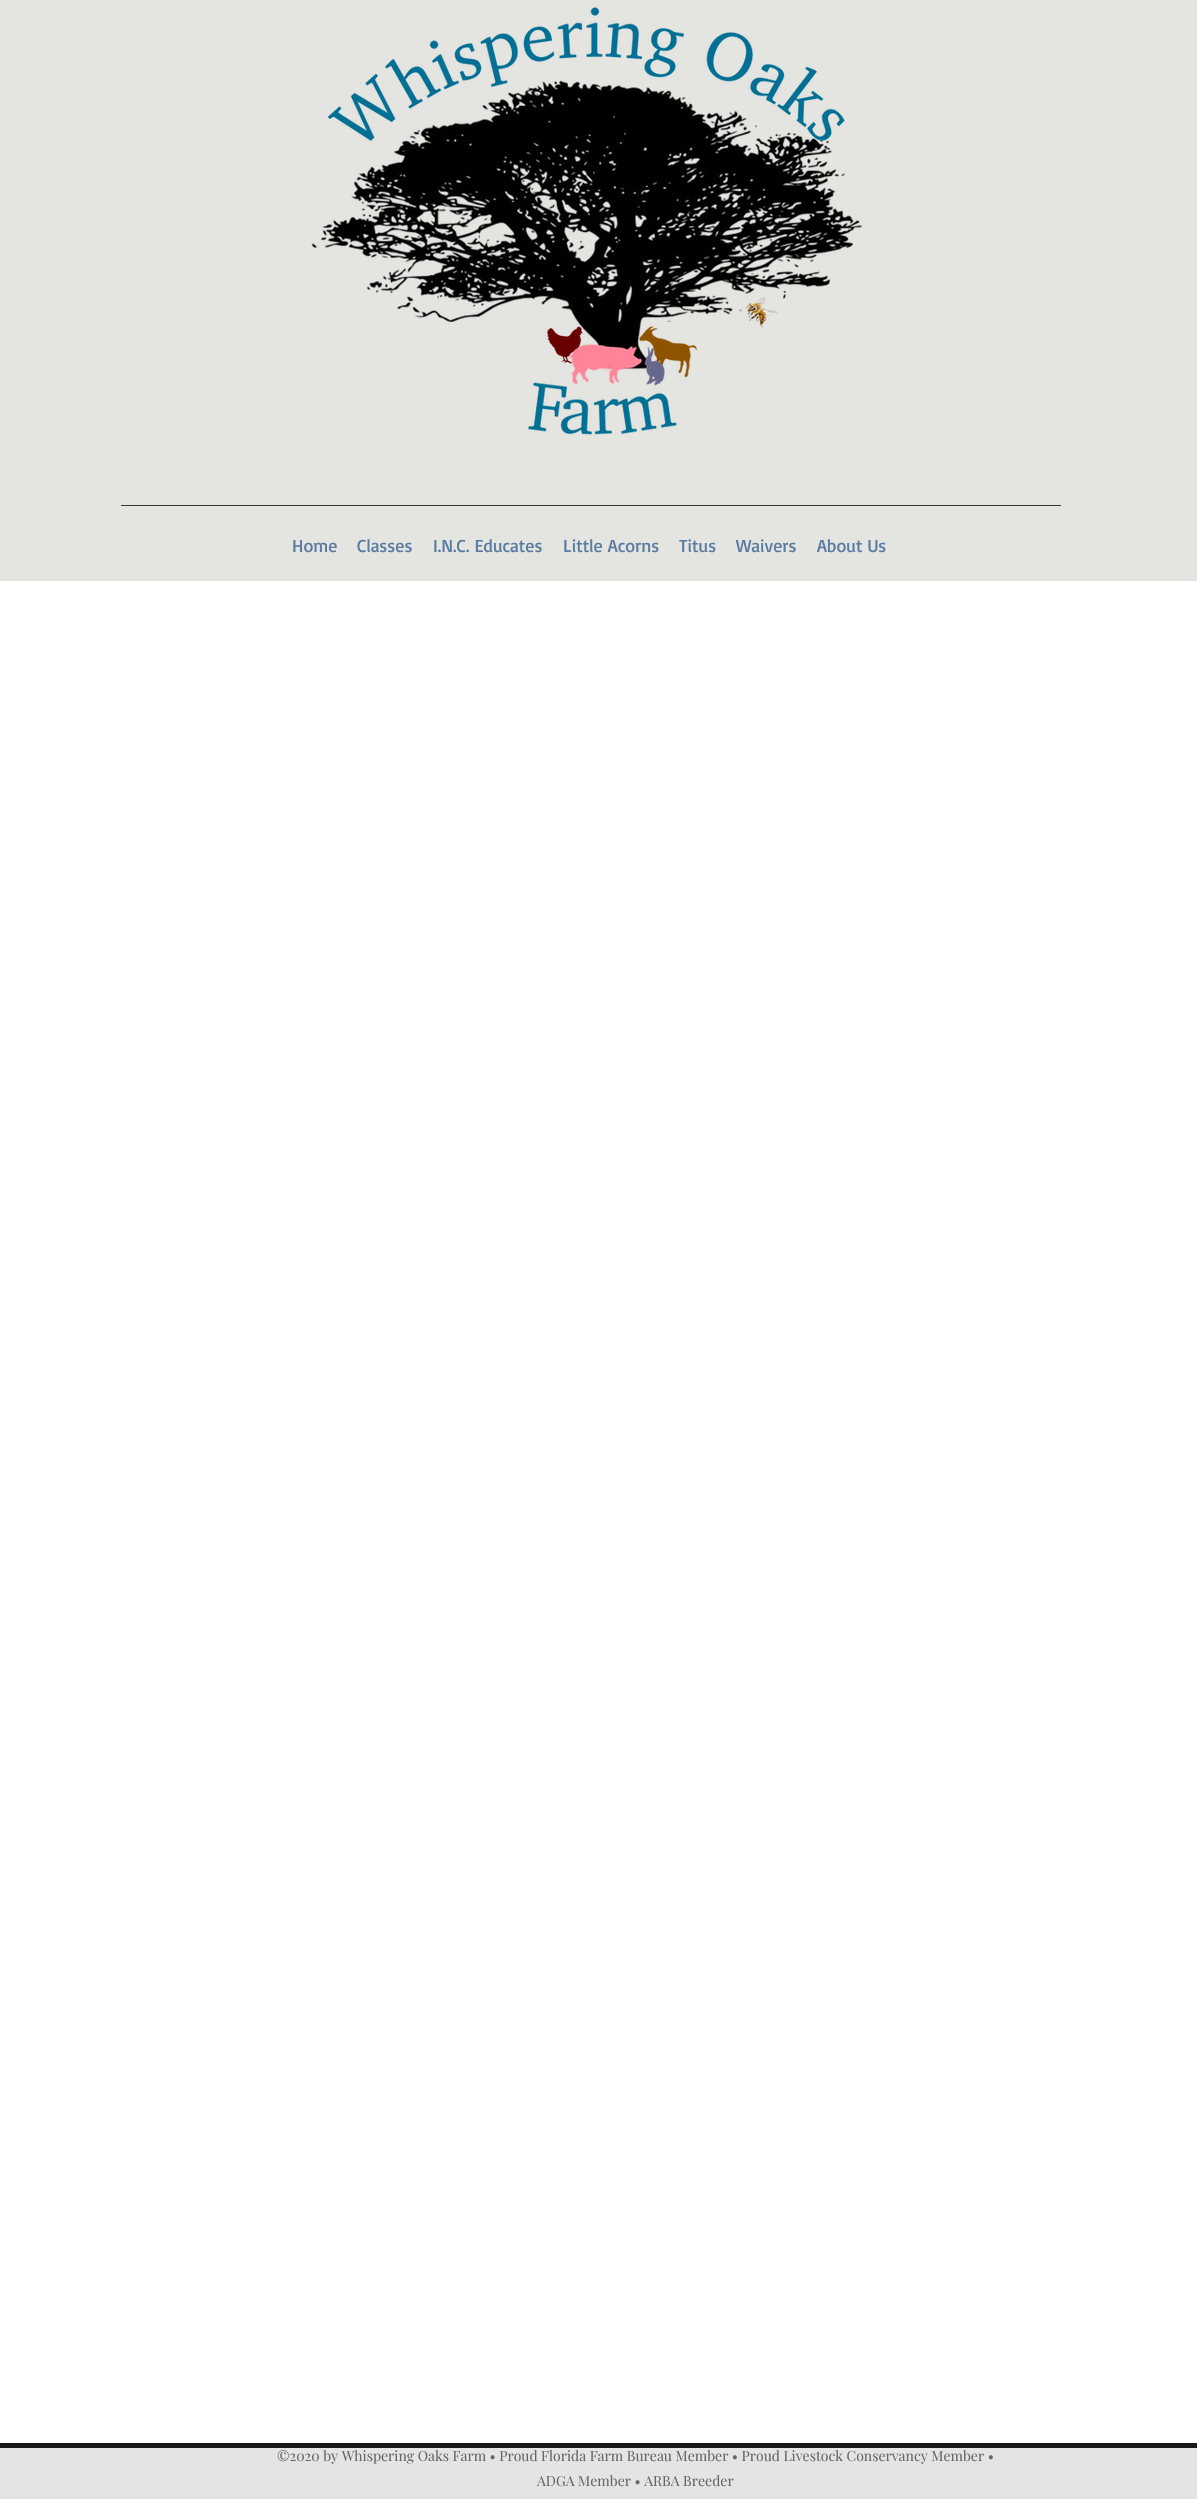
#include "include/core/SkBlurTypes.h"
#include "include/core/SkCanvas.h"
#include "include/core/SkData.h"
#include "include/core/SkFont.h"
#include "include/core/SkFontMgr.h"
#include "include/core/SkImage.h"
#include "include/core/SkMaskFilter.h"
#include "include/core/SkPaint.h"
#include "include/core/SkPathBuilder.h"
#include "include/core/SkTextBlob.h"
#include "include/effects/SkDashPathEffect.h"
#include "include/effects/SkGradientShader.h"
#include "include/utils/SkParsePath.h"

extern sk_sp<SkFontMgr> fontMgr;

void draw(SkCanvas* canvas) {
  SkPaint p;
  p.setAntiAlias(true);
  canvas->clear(SK_ColorWHITE);
  p.setColor(SkColorSetRGB(228, 228, 225));
  canvas->drawRect(SkRect::MakeLTRB(0, 0, 1197, 581), p);
  canvas->drawImageRect(SkImages::DeferredFromEncodedData(SkData::MakeFromFileName("images/1.png")), SkRect::MakeLTRB(311, 7, 862, 435), SkSamplingOptions());
  p.setColor(SkColorSetRGB(55, 55, 54));
  canvas->drawRect(SkRect::MakeLTRB(121, 505, 1061, 506), p);
  p.setColor(SkColorSetRGB(228, 228, 226));
  canvas->drawRect(SkRect::MakeLTRB(0, 2448, 1197, 2499), p);
  p.setColor(SkColorSetRGB(24, 24, 24));
  canvas->drawRect(SkRect::MakeLTRB(0, 2443, 1197, 2448), p);
  SkFont font1(fontMgr->matchFamilyStyle("Basic", SkFontStyle::Normal()), 18);
  font1.setSubpixel(true);
  p.setColor(SkColorSetRGB(89, 124, 161));
  canvas->drawString("Home", 292, 552, font1, p);
  canvas->drawString("Classes", 357, 552, font1, p);
  canvas->drawString("I.N.C. Educates", 433, 552, font1, p);
  canvas->drawString("Little Acorns", 563, 552, font1, p);
  canvas->drawString("Titus", 679, 552, font1, p);
  canvas->drawString("Waivers", 736, 552, font1, p);
  canvas->drawString("About Us", 817, 552, font1, p);
  SkFont font2(fontMgr->matchFamilyStyle("Playfair Display", SkFontStyle::Normal()), 14);
  font2.setSubpixel(true);
  p.setColor(SkColorSetRGB(102, 102, 102));
  canvas->drawString("©2020 by Whispering Oaks Farm • Proud Florida Farm Bureau Member • Proud Livestock Conservancy Member •", 277, 2461, font2, p);
  canvas->drawString("ADGA Member • ARBA Breeder", 537, 2486, font2, p);
}
